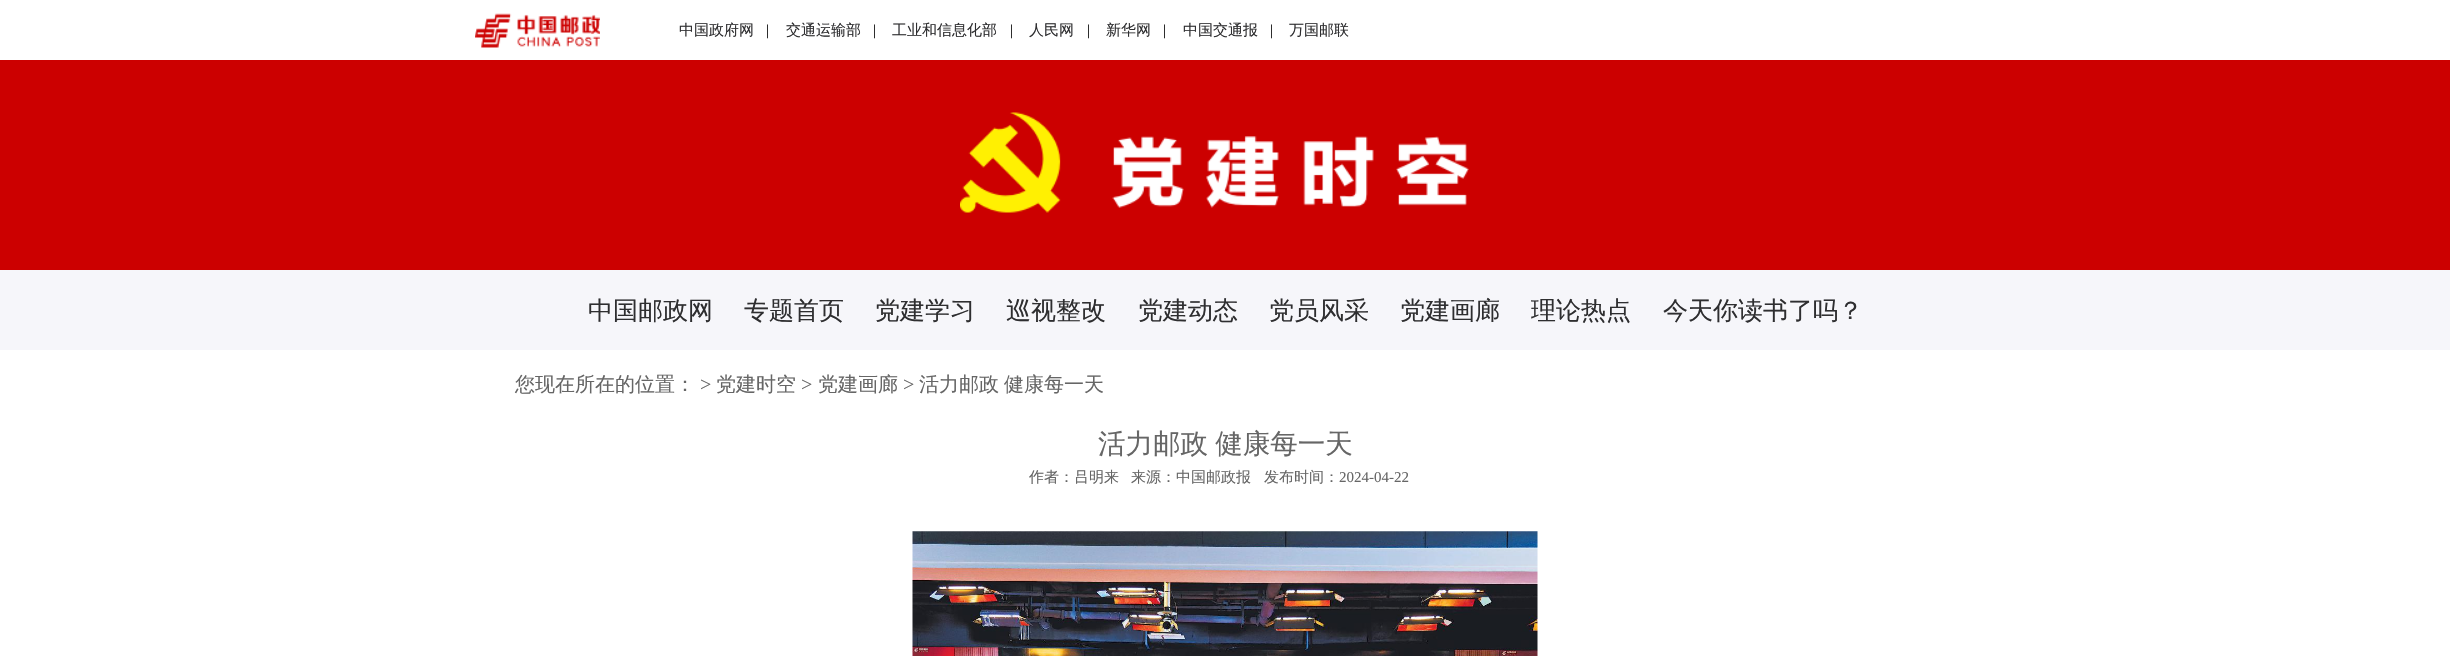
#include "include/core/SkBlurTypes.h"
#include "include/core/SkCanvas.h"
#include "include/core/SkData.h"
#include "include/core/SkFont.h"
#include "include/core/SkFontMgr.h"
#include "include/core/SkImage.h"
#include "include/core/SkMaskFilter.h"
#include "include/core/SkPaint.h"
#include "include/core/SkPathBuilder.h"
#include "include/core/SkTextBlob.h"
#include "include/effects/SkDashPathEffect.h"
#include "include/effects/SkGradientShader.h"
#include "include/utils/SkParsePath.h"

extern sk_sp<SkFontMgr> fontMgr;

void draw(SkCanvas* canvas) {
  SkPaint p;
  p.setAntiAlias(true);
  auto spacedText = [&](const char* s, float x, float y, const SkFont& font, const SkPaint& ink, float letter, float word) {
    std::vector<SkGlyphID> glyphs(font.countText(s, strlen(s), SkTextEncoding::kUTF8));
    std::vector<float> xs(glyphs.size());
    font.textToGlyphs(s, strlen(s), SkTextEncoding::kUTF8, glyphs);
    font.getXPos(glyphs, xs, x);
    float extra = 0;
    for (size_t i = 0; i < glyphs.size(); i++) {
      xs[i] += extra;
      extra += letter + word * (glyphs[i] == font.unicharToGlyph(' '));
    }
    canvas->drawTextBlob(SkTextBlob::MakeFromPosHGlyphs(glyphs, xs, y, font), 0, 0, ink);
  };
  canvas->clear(SK_ColorWHITE);
  canvas->drawImageRect(SkImages::DeferredFromEncodedData(SkData::MakeFromFileName("images/1.png")), SkRect::MakeLTRB(475, 13, 600, 48), SkSamplingOptions());
  p.setColor(SkColorSetRGB(204, 0, 0));
  canvas->drawRect(SkRect::MakeLTRB(0, 60, 2450, 270), p);
  canvas->drawImageRect(SkImages::DeferredFromEncodedData(SkData::MakeFromFileName("images/2.png")), SkRect::MakeLTRB(960, 112, 1469, 213), SkSamplingOptions());
  p.setColor(SkColorSetRGB(246, 246, 250));
  canvas->drawRect(SkRect::MakeLTRB(0, 270, 2450, 350), p);
  canvas->drawImageRect(SkImages::DeferredFromEncodedData(SkData::MakeFromFileName("images/3.png")), SkRect::MakeLTRB(912, 531, 1538, 656), SkSamplingOptions());
  SkFont font1(fontMgr->matchFamilyStyle("WenQuanYi Zen Hei", SkFontStyle(500, SkFontStyle::kNormal_Width, SkFontStyle::kUpright_Slant)), 15);
  font1.setSubpixel(true);
  p.setColor(SkColorSetRGB(46, 46, 48));
  canvas->drawString("中国政府网", 679, 35, font1, p);
  SkFont font2(fontMgr->matchFamilyStyle("Liberation Serif", SkFontStyle::Normal()), 15);
  font2.setSubpixel(true);
  p.setColor(SK_ColorBLACK);
  canvas->drawString("|", 766, 35, font2, p);
  p.setColor(SkColorSetRGB(46, 46, 48));
  canvas->drawString("交通运输部", 786, 35, font1, p);
  p.setColor(SK_ColorBLACK);
  canvas->drawString("|", 873, 35, font2, p);
  p.setColor(SkColorSetRGB(46, 46, 48));
  canvas->drawString("工业和信息化部", 892, 35, font1, p);
  p.setColor(SK_ColorBLACK);
  canvas->drawString("|", 1010, 35, font2, p);
  p.setColor(SkColorSetRGB(46, 46, 48));
  canvas->drawString("人民网", 1029, 35, font1, p);
  p.setColor(SK_ColorBLACK);
  canvas->drawString("|", 1087, 35, font2, p);
  p.setColor(SkColorSetRGB(46, 46, 48));
  canvas->drawString("新华网", 1106, 35, font1, p);
  p.setColor(SK_ColorBLACK);
  canvas->drawString("|", 1163, 35, font2, p);
  p.setColor(SkColorSetRGB(46, 46, 48));
  canvas->drawString("中国交通报", 1183, 35, font1, p);
  p.setColor(SK_ColorBLACK);
  canvas->drawString("|", 1270, 35, font2, p);
  p.setColor(SkColorSetRGB(46, 46, 48));
  canvas->drawString("万国邮联", 1289, 35, font1, p);
  SkFont font3(fontMgr->matchFamilyStyle("WenQuanYi Zen Hei", SkFontStyle(500, SkFontStyle::kNormal_Width, SkFontStyle::kUpright_Slant)), 25);
  font3.setSubpixel(true);
  canvas->drawString("中国邮政网", 588, 319, font3, p);
  canvas->drawString("专题首页", 744, 319, font3, p);
  canvas->drawString("党建学习", 875, 319, font3, p);
  canvas->drawString("巡视整改", 1006, 319, font3, p);
  canvas->drawString("党建动态", 1138, 319, font3, p);
  canvas->drawString("党员风采", 1269, 319, font3, p);
  canvas->drawString("党建画廊", 1400, 319, font3, p);
  canvas->drawString("理论热点", 1531, 319, font3, p);
  canvas->drawString("今天你读书了吗？", 1663, 319, font3, p);
  SkFont font4(fontMgr->matchFamilyStyle("WenQuanYi Zen Hei", SkFontStyle(500, SkFontStyle::kNormal_Width, SkFontStyle::kUpright_Slant)), 20);
  font4.setSubpixel(true);
  p.setColor(SkColorSetRGB(102, 102, 102));
  canvas->drawString("您现在所在的位置：", 515, 391, font4, p);
  SkFont font5(fontMgr->matchFamilyStyle("Liberation Serif", SkFontStyle::Normal()), 20);
  font5.setSubpixel(true);
  canvas->drawString(">", 700, 391, font5, p);
  canvas->drawString("党建时空", 716, 391, font4, p);
  canvas->drawString(">", 801, 391, font5, p);
  canvas->drawString("党建画廊", 818, 391, font4, p);
  canvas->drawString(">", 903, 391, font5, p);
  spacedText("活力邮政 健康每一天", 919, 391, font4, p, 0, -1);
  SkFont font6(fontMgr->matchFamilyStyle("WenQuanYi Zen Hei", SkFontStyle(500, SkFontStyle::kNormal_Width, SkFontStyle::kUpright_Slant)), 27.5f);
  font6.setSubpixel(true);
  spacedText("活力邮政 健康每一天", 1098, 453, font6, p, 0, -1);
  canvas->drawString("作者：吕明来", 1029, 482, font1, p);
  canvas->drawString("来源：中国邮政报", 1131, 482, font1, p);
  canvas->drawString("发布时间：", 1264, 482, font1, p);
  canvas->drawString("2024-04-22", 1339, 482, font2, p);
}
